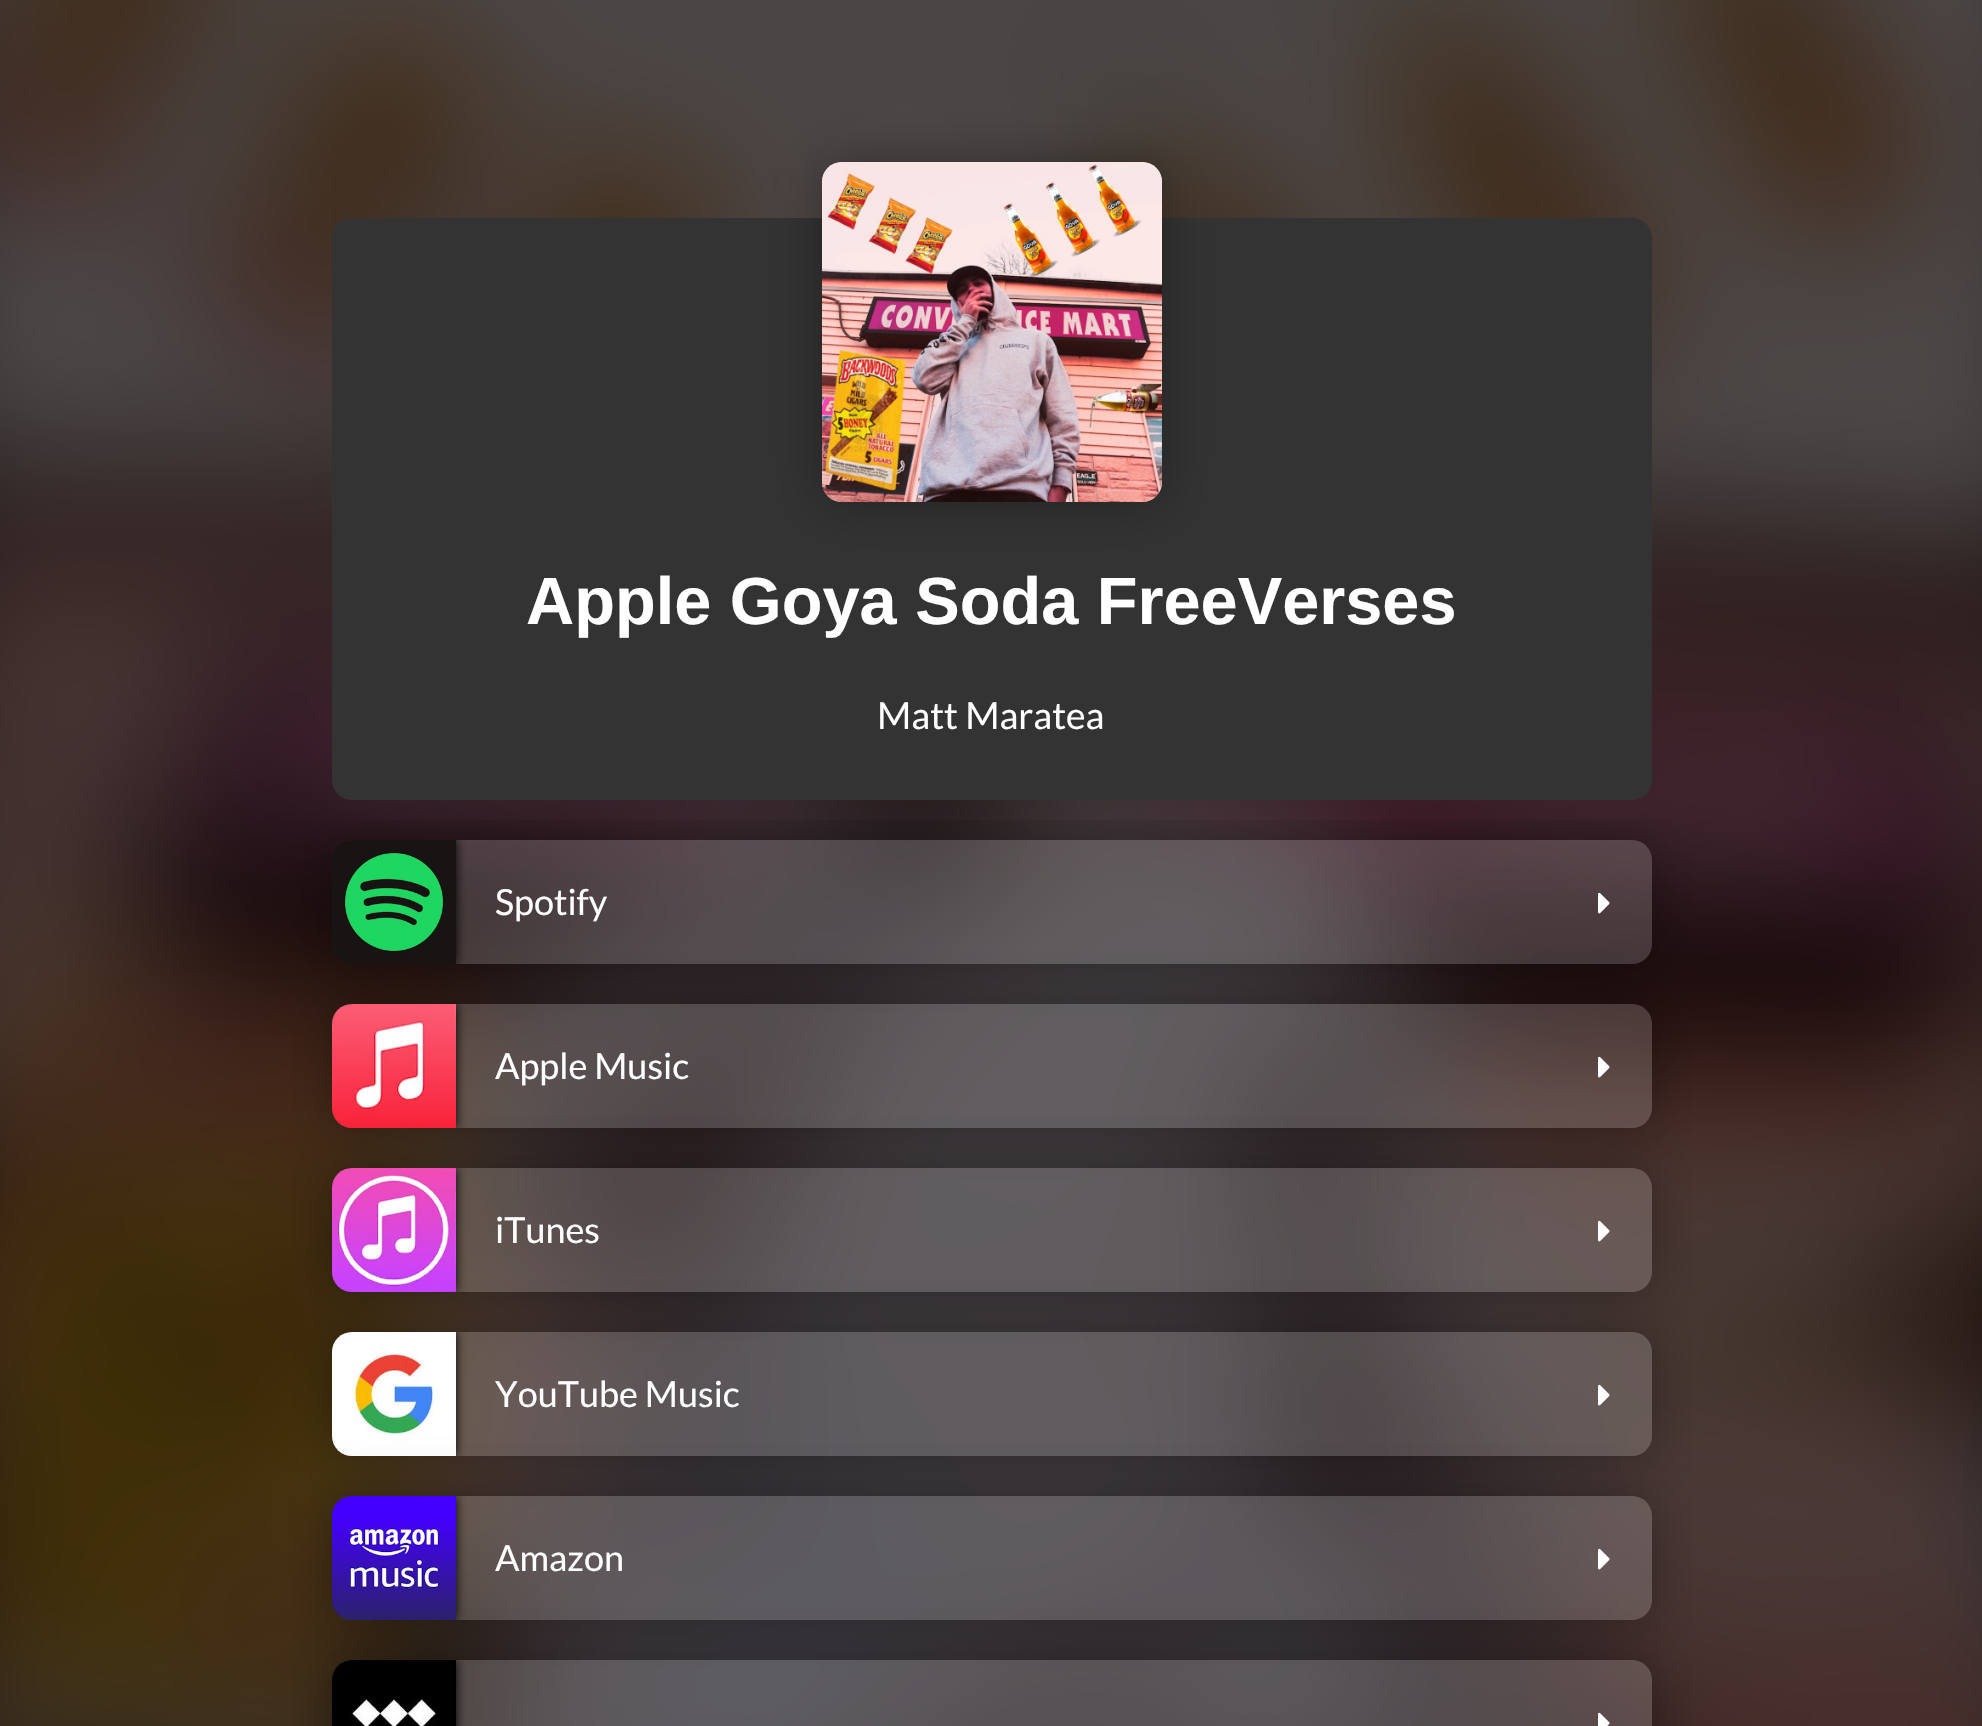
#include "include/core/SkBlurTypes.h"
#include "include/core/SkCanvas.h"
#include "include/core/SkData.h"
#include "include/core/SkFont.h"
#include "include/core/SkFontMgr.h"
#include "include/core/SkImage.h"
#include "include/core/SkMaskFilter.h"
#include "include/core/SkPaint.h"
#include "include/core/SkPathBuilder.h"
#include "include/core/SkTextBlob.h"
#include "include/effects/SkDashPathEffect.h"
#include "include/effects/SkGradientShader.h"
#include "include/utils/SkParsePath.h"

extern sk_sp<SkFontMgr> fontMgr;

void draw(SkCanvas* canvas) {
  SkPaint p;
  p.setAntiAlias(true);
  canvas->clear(SK_ColorBLACK);
  canvas->drawImageRect(SkImages::DeferredFromEncodedData(SkData::MakeFromFileName("images/1.png")), SkRect::MakeLTRB(0, 0, 1982, 1726), SkSamplingOptions());
  canvas->save();
  canvas->clipRect(SkRect::MakeLTRB(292, 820, 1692, 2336));
  canvas->clipPath(SkPathBuilder(SkPathFillType::kEvenOdd).moveTo(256, 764).lineTo(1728, 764).lineTo(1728, 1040).lineTo(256, 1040).close().moveTo(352, 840).lineTo(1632, 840).cubicTo(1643, 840, 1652, 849, 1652, 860).lineTo(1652, 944).cubicTo(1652, 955, 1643, 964, 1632, 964).lineTo(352, 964).cubicTo(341, 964, 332, 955, 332, 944).lineTo(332, 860).cubicTo(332, 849, 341, 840, 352, 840).close().detach(), true);
  p.setColor(SkColorSetARGB(89, 0, 0, 0));
  p.setMaskFilter(SkMaskFilter::MakeBlur(kNormal_SkBlurStyle, 25));
  canvas->drawRoundRect(SkRect::MakeLTRB(332, 840, 1652, 964), 20, 20, p);
  p.setMaskFilter(nullptr);
  canvas->restore();
  p.setColor(SkColorSetRGB(51, 51, 51));
  canvas->drawRoundRect(SkRect::MakeLTRB(332, 218, 1652, 800), 20, 20, p);
  p.setColor(SkColorSetARGB(89, 0, 0, 0));
  p.setMaskFilter(SkMaskFilter::MakeBlur(kNormal_SkBlurStyle, 25));
  canvas->drawRoundRect(SkRect::MakeLTRB(822, 162, 1162, 502), 20, 20, p);
  p.setMaskFilter(nullptr);
  p.setColor(SkColorSetRGB(204, 204, 204));
  canvas->drawRoundRect(SkRect::MakeLTRB(822, 162, 1162, 502), 20, 20, p);
  canvas->drawImageRect(SkImages::DeferredFromEncodedData(SkData::MakeFromFileName("images/2.png")), SkRect::MakeLTRB(822, 162, 1162, 502), SkSamplingOptions());
  p.setColor(SkColorSetARGB(43, 255, 255, 255));
  canvas->drawRoundRect(SkRect::MakeLTRB(332, 840, 1652, 964), 20, 20, p);
  canvas->save();
  canvas->clipPath(SkPathBuilder().moveTo(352, 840).lineTo(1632, 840).cubicTo(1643, 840, 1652, 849, 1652, 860).lineTo(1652, 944).cubicTo(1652, 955, 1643, 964, 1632, 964).lineTo(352, 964).cubicTo(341, 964, 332, 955, 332, 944).lineTo(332, 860).cubicTo(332, 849, 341, 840, 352, 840).close().detach(), true);
  p.setColor(SK_ColorBLACK);
  p.setMaskFilter(SkMaskFilter::MakeBlur(kNormal_SkBlurStyle, 5));
  canvas->drawRect(SkRect::MakeLTRB(332, 840, 456, 964), p);
  p.setMaskFilter(nullptr);
  canvas->restore();
  canvas->drawImageRect(SkImages::DeferredFromEncodedData(SkData::MakeFromFileName("images/3.png")), SkRect::MakeLTRB(332, 840, 456, 964), SkSamplingOptions());
  canvas->drawImageRect(SkImages::DeferredFromEncodedData(SkData::MakeFromFileName("images/4.png")), SkRect::MakeLTRB(1598, 892, 1610, 914), SkSamplingOptions());
  canvas->save();
  canvas->clipRect(SkRect::MakeLTRB(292, 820, 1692, 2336));
  canvas->clipPath(SkPathBuilder(SkPathFillType::kEvenOdd).moveTo(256, 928).lineTo(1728, 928).lineTo(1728, 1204).lineTo(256, 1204).close().moveTo(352, 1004).lineTo(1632, 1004).cubicTo(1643, 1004, 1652, 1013, 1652, 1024).lineTo(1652, 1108).cubicTo(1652, 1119, 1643, 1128, 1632, 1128).lineTo(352, 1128).cubicTo(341, 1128, 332, 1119, 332, 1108).lineTo(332, 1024).cubicTo(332, 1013, 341, 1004, 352, 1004).close().detach(), true);
  p.setColor(SkColorSetARGB(89, 0, 0, 0));
  p.setMaskFilter(SkMaskFilter::MakeBlur(kNormal_SkBlurStyle, 25));
  canvas->drawRoundRect(SkRect::MakeLTRB(332, 1004, 1652, 1128), 20, 20, p);
  p.setMaskFilter(nullptr);
  canvas->restore();
  p.setColor(SkColorSetARGB(43, 255, 255, 255));
  canvas->drawRoundRect(SkRect::MakeLTRB(332, 1004, 1652, 1128), 20, 20, p);
  canvas->save();
  canvas->clipPath(SkPathBuilder().moveTo(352, 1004).lineTo(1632, 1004).cubicTo(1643, 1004, 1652, 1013, 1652, 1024).lineTo(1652, 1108).cubicTo(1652, 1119, 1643, 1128, 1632, 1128).lineTo(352, 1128).cubicTo(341, 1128, 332, 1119, 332, 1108).lineTo(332, 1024).cubicTo(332, 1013, 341, 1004, 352, 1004).close().detach(), true);
  p.setColor(SK_ColorBLACK);
  p.setMaskFilter(SkMaskFilter::MakeBlur(kNormal_SkBlurStyle, 5));
  canvas->drawRect(SkRect::MakeLTRB(332, 1004, 456, 1128), p);
  p.setMaskFilter(nullptr);
  canvas->restore();
  canvas->drawImageRect(SkImages::DeferredFromEncodedData(SkData::MakeFromFileName("images/5.png")), SkRect::MakeLTRB(332, 1004, 456, 1128), SkSamplingOptions());
  canvas->drawImageRect(SkImages::DeferredFromEncodedData(SkData::MakeFromFileName("images/6.png")), SkRect::MakeLTRB(1598, 1056, 1610, 1078), SkSamplingOptions());
  canvas->save();
  canvas->clipRect(SkRect::MakeLTRB(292, 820, 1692, 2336));
  canvas->clipPath(SkPathBuilder(SkPathFillType::kEvenOdd).moveTo(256, 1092).lineTo(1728, 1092).lineTo(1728, 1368).lineTo(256, 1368).close().moveTo(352, 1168).lineTo(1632, 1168).cubicTo(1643, 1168, 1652, 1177, 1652, 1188).lineTo(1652, 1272).cubicTo(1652, 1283, 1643, 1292, 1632, 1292).lineTo(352, 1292).cubicTo(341, 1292, 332, 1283, 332, 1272).lineTo(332, 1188).cubicTo(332, 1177, 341, 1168, 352, 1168).close().detach(), true);
  p.setColor(SkColorSetARGB(89, 0, 0, 0));
  p.setMaskFilter(SkMaskFilter::MakeBlur(kNormal_SkBlurStyle, 25));
  canvas->drawRoundRect(SkRect::MakeLTRB(332, 1168, 1652, 1292), 20, 20, p);
  p.setMaskFilter(nullptr);
  canvas->restore();
  p.setColor(SkColorSetARGB(43, 255, 255, 255));
  canvas->drawRoundRect(SkRect::MakeLTRB(332, 1168, 1652, 1292), 20, 20, p);
  canvas->save();
  canvas->clipPath(SkPathBuilder().moveTo(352, 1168).lineTo(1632, 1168).cubicTo(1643, 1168, 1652, 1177, 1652, 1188).lineTo(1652, 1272).cubicTo(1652, 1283, 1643, 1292, 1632, 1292).lineTo(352, 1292).cubicTo(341, 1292, 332, 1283, 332, 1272).lineTo(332, 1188).cubicTo(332, 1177, 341, 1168, 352, 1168).close().detach(), true);
  p.setColor(SK_ColorBLACK);
  p.setMaskFilter(SkMaskFilter::MakeBlur(kNormal_SkBlurStyle, 5));
  canvas->drawRect(SkRect::MakeLTRB(332, 1168, 456, 1292), p);
  p.setMaskFilter(nullptr);
  canvas->restore();
  canvas->drawImageRect(SkImages::DeferredFromEncodedData(SkData::MakeFromFileName("images/7.png")), SkRect::MakeLTRB(332, 1168, 456, 1292), SkSamplingOptions());
  canvas->drawImageRect(SkImages::DeferredFromEncodedData(SkData::MakeFromFileName("images/8.png")), SkRect::MakeLTRB(1598, 1220, 1610, 1242), SkSamplingOptions());
  canvas->save();
  canvas->clipRect(SkRect::MakeLTRB(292, 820, 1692, 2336));
  canvas->clipPath(SkPathBuilder(SkPathFillType::kEvenOdd).moveTo(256, 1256).lineTo(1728, 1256).lineTo(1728, 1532).lineTo(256, 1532).close().moveTo(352, 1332).lineTo(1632, 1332).cubicTo(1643, 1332, 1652, 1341, 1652, 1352).lineTo(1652, 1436).cubicTo(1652, 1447, 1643, 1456, 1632, 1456).lineTo(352, 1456).cubicTo(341, 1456, 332, 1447, 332, 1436).lineTo(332, 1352).cubicTo(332, 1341, 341, 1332, 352, 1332).close().detach(), true);
  p.setColor(SkColorSetARGB(89, 0, 0, 0));
  p.setMaskFilter(SkMaskFilter::MakeBlur(kNormal_SkBlurStyle, 25));
  canvas->drawRoundRect(SkRect::MakeLTRB(332, 1332, 1652, 1456), 20, 20, p);
  p.setMaskFilter(nullptr);
  canvas->restore();
  p.setColor(SkColorSetARGB(43, 255, 255, 255));
  canvas->drawRoundRect(SkRect::MakeLTRB(332, 1332, 1652, 1456), 20, 20, p);
  canvas->save();
  canvas->clipPath(SkPathBuilder().moveTo(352, 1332).lineTo(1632, 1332).cubicTo(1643, 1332, 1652, 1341, 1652, 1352).lineTo(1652, 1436).cubicTo(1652, 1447, 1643, 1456, 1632, 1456).lineTo(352, 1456).cubicTo(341, 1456, 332, 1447, 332, 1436).lineTo(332, 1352).cubicTo(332, 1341, 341, 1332, 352, 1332).close().detach(), true);
  p.setColor(SK_ColorBLACK);
  p.setMaskFilter(SkMaskFilter::MakeBlur(kNormal_SkBlurStyle, 5));
  canvas->drawRect(SkRect::MakeLTRB(332, 1332, 456, 1456), p);
  p.setMaskFilter(nullptr);
  canvas->restore();
  canvas->drawImageRect(SkImages::DeferredFromEncodedData(SkData::MakeFromFileName("images/9.png")), SkRect::MakeLTRB(332, 1332, 456, 1456), SkSamplingOptions());
  canvas->drawImageRect(SkImages::DeferredFromEncodedData(SkData::MakeFromFileName("images/10.png")), SkRect::MakeLTRB(1598, 1384, 1610, 1406), SkSamplingOptions());
  canvas->save();
  canvas->clipRect(SkRect::MakeLTRB(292, 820, 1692, 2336));
  canvas->clipPath(SkPathBuilder(SkPathFillType::kEvenOdd).moveTo(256, 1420).lineTo(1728, 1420).lineTo(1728, 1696).lineTo(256, 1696).close().moveTo(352, 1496).lineTo(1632, 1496).cubicTo(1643, 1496, 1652, 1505, 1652, 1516).lineTo(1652, 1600).cubicTo(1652, 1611, 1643, 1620, 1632, 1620).lineTo(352, 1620).cubicTo(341, 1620, 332, 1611, 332, 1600).lineTo(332, 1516).cubicTo(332, 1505, 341, 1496, 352, 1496).close().detach(), true);
  p.setColor(SkColorSetARGB(89, 0, 0, 0));
  p.setMaskFilter(SkMaskFilter::MakeBlur(kNormal_SkBlurStyle, 25));
  canvas->drawRoundRect(SkRect::MakeLTRB(332, 1496, 1652, 1620), 20, 20, p);
  p.setMaskFilter(nullptr);
  canvas->restore();
  p.setColor(SkColorSetARGB(43, 255, 255, 255));
  canvas->drawRoundRect(SkRect::MakeLTRB(332, 1496, 1652, 1620), 20, 20, p);
  canvas->save();
  canvas->clipPath(SkPathBuilder().moveTo(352, 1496).lineTo(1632, 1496).cubicTo(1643, 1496, 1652, 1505, 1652, 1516).lineTo(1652, 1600).cubicTo(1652, 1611, 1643, 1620, 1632, 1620).lineTo(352, 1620).cubicTo(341, 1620, 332, 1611, 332, 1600).lineTo(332, 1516).cubicTo(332, 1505, 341, 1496, 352, 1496).close().detach(), true);
  p.setColor(SK_ColorBLACK);
  p.setMaskFilter(SkMaskFilter::MakeBlur(kNormal_SkBlurStyle, 5));
  canvas->drawRect(SkRect::MakeLTRB(332, 1496, 456, 1620), p);
  p.setMaskFilter(nullptr);
  canvas->restore();
  canvas->drawImageRect(SkImages::DeferredFromEncodedData(SkData::MakeFromFileName("images/11.png")), SkRect::MakeLTRB(332, 1496, 456, 1620), SkSamplingOptions());
  canvas->drawImageRect(SkImages::DeferredFromEncodedData(SkData::MakeFromFileName("images/12.png")), SkRect::MakeLTRB(1598, 1548, 1610, 1570), SkSamplingOptions());
  canvas->save();
  canvas->clipRect(SkRect::MakeLTRB(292, 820, 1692, 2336));
  canvas->clipPath(SkPathBuilder(SkPathFillType::kEvenOdd).moveTo(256, 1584).lineTo(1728, 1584).lineTo(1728, 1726).lineTo(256, 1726).close().moveTo(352, 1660).lineTo(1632, 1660).cubicTo(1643, 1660, 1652, 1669, 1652, 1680).lineTo(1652, 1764).cubicTo(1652, 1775, 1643, 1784, 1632, 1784).lineTo(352, 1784).cubicTo(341, 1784, 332, 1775, 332, 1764).lineTo(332, 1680).cubicTo(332, 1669, 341, 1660, 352, 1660).close().detach(), true);
  p.setColor(SkColorSetARGB(89, 0, 0, 0));
  p.setMaskFilter(SkMaskFilter::MakeBlur(kNormal_SkBlurStyle, 25));
  canvas->drawRoundRect(SkRect::MakeLTRB(332, 1660, 1652, 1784), 20, 20, p);
  p.setMaskFilter(nullptr);
  canvas->restore();
  p.setColor(SkColorSetARGB(43, 255, 255, 255));
  canvas->drawRoundRect(SkRect::MakeLTRB(332, 1660, 1652, 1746), 20, 20, p);
  canvas->save();
  canvas->clipPath(SkPathBuilder().moveTo(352, 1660).lineTo(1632, 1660).cubicTo(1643, 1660, 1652, 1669, 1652, 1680).lineTo(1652, 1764).cubicTo(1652, 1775, 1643, 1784, 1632, 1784).lineTo(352, 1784).cubicTo(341, 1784, 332, 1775, 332, 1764).lineTo(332, 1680).cubicTo(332, 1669, 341, 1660, 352, 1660).close().detach(), true);
  p.setColor(SK_ColorBLACK);
  p.setMaskFilter(SkMaskFilter::MakeBlur(kNormal_SkBlurStyle, 5));
  canvas->drawRect(SkRect::MakeLTRB(332, 1660, 456, 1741), p);
  p.setMaskFilter(nullptr);
  canvas->restore();
  canvas->drawImageRect(SkImages::DeferredFromEncodedData(SkData::MakeFromFileName("images/13.png")), SkRect::MakeLTRB(332, 1660, 456, 1726), SkSamplingOptions());
  canvas->drawImageRect(SkImages::DeferredFromEncodedData(SkData::MakeFromFileName("images/14.png")), SkRect::MakeLTRB(1598, 1712, 1610, 1726), SkSamplingOptions());
  SkFont font1(fontMgr->matchFamilyStyle("Liberation Sans", SkFontStyle::Bold()), 66.7f);
  font1.setSubpixel(true);
  p.setColor(SK_ColorWHITE);
  canvas->drawString("Apple Goya Soda FreeVerses", 526, 624, font1, p);
  SkFont font2(fontMgr->matchFamilyStyle("Lato", SkFontStyle::Normal()), 37.25f);
  font2.setSubpixel(true);
  canvas->drawString("Matt Maratea", 877, 729, font2, p);
  SkFont font3(fontMgr->matchFamilyStyle("Lato", SkFontStyle::Normal()), 36);
  font3.setSubpixel(true);
  canvas->drawString("Spotify", 495, 915, font3, p);
  canvas->drawString("Apple Music", 495, 1079, font3, p);
  canvas->drawString("iTunes", 495, 1243, font3, p);
  canvas->drawString("YouTube Music", 495, 1407, font3, p);
  canvas->drawString("Amazon", 495, 1571, font3, p);
}
